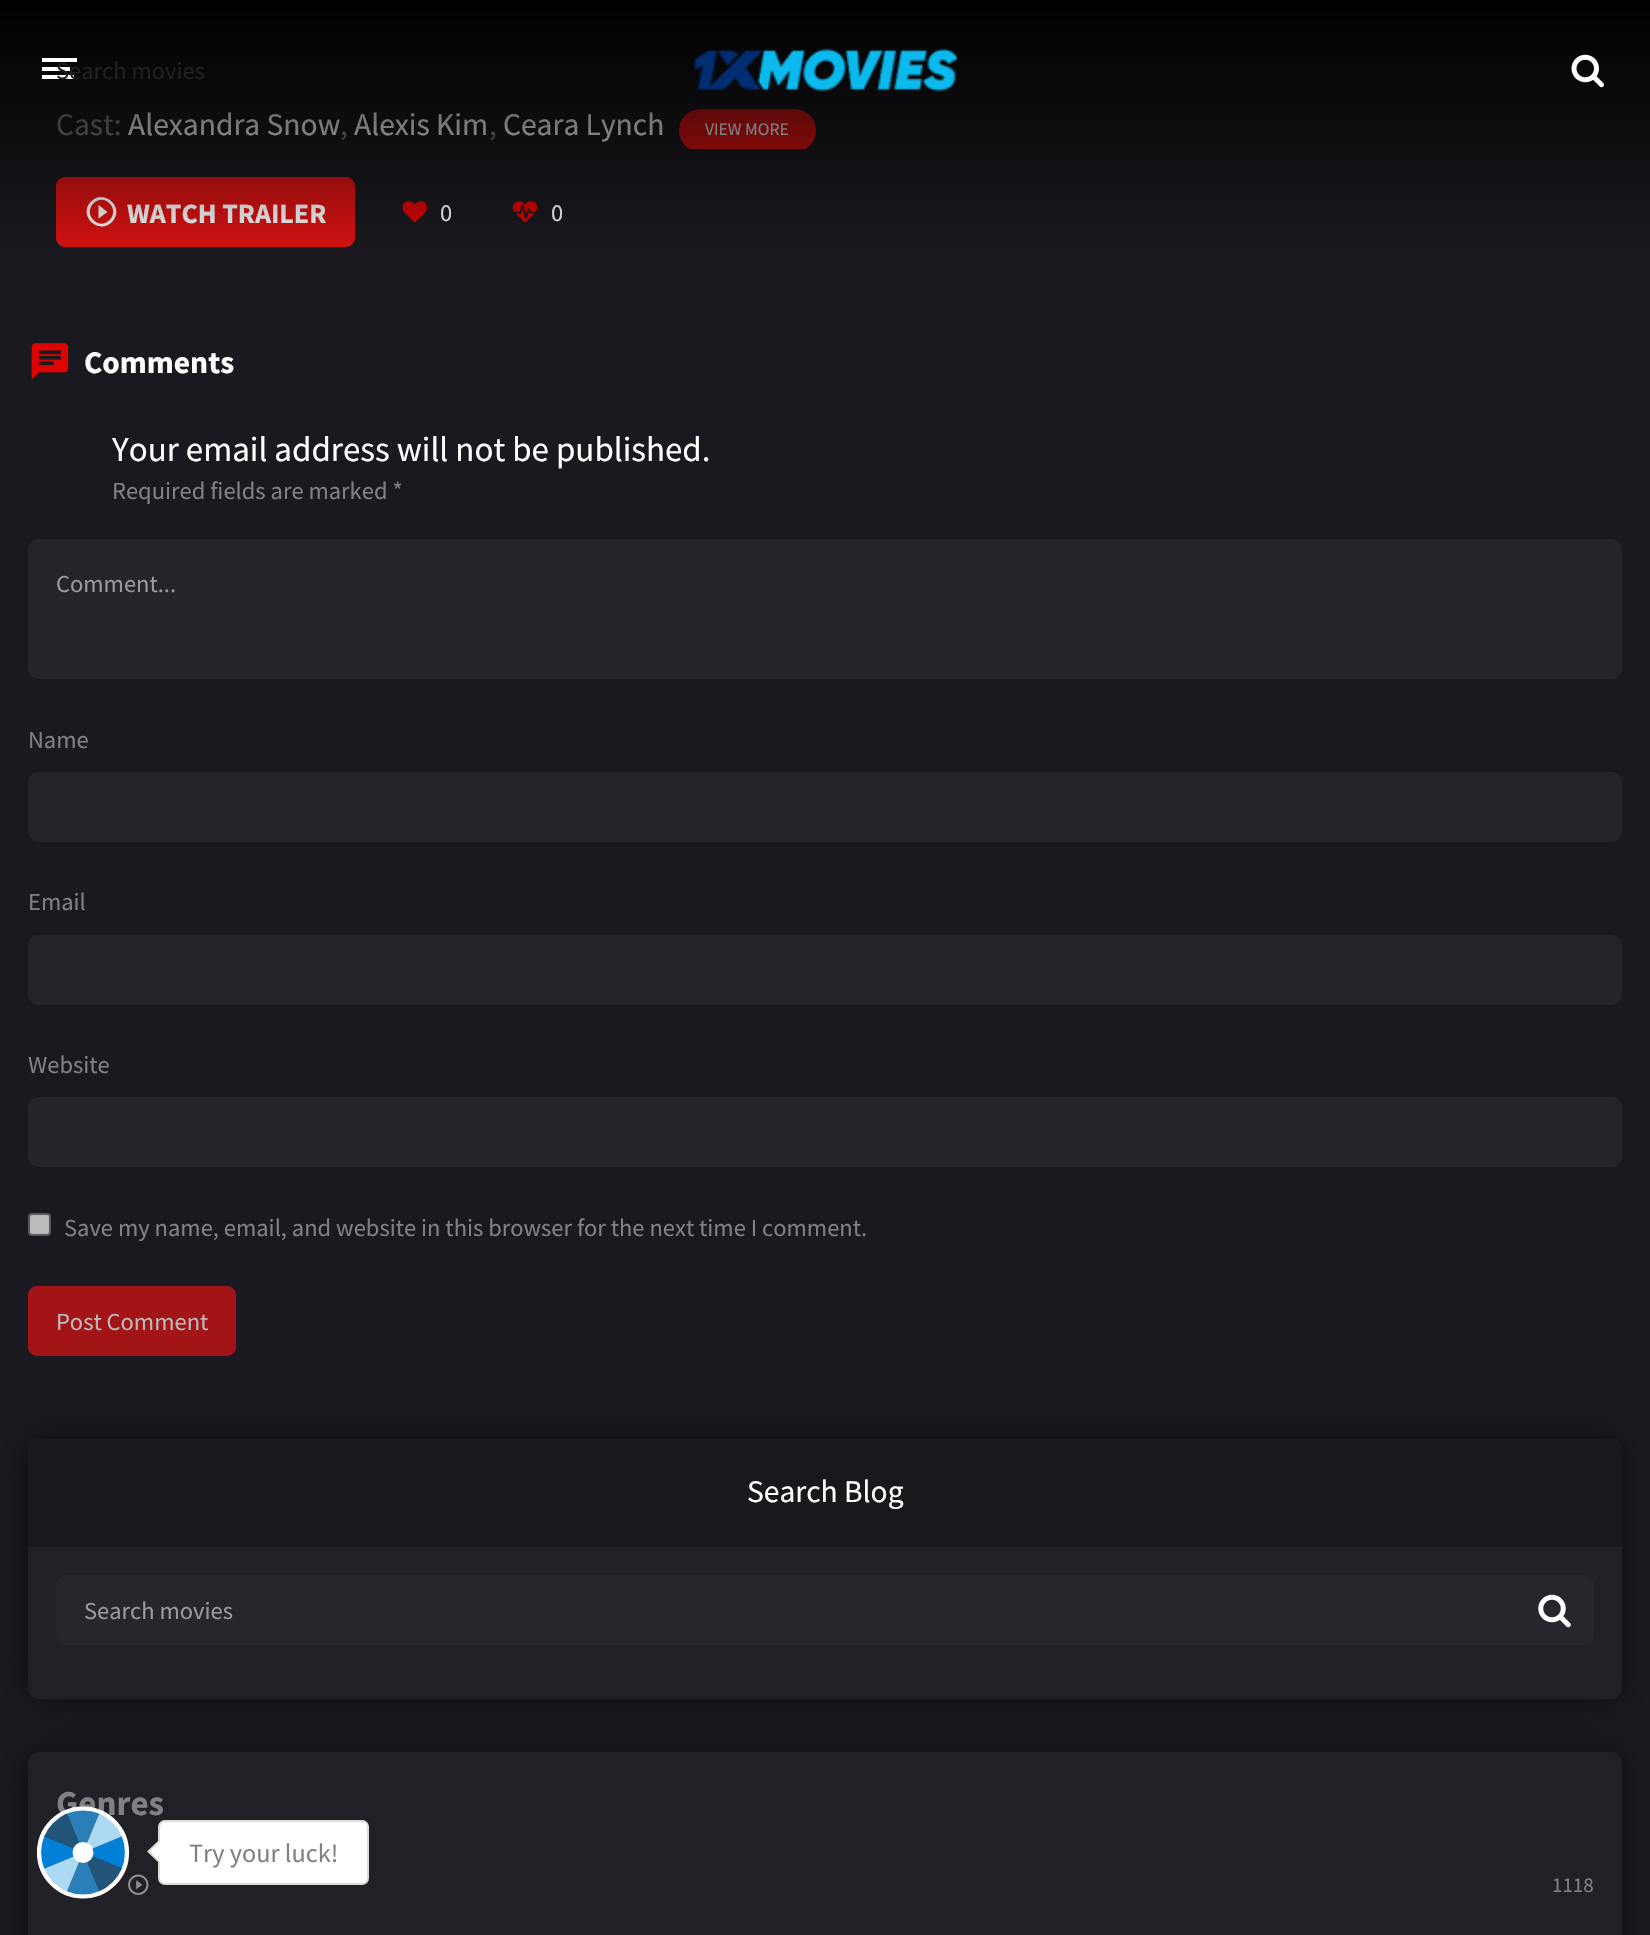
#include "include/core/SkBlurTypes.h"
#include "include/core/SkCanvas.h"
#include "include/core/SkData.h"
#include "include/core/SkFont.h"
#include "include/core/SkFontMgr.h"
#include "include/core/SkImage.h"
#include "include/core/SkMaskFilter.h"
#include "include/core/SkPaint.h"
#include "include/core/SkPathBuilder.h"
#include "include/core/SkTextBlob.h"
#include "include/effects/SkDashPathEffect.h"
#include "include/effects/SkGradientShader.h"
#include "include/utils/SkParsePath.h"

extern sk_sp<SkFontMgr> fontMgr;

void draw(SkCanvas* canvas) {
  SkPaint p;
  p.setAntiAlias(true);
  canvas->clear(SkColorSetRGB(26, 25, 31));
  canvas->save();
  canvas->clipRect(SkRect::MakeLTRB(56, 102, 1594, 149));
  p.setColor(SkColorSetRGB(222, 18, 18));
  canvas->drawRoundRect(SkRect::MakeLTRB(679, 109, 816, 152), 21.5f, 21.5f, p);
  canvas->restore();
  canvas->drawRoundRect(SkRect::MakeLTRB(56, 177, 355, 247), 9, 9, p);
  p.setColor(SK_ColorWHITE);
  canvas->drawPath(SkPathBuilder().moveTo(93.5f, 220).cubicTo(104, 231, 120.5f, 214.5f, 109.5f, 203.5f).cubicTo(99, 192.5f, 82.5f, 209, 93.5f, 220).close().moveTo(91, 201.5f).cubicTo(105, 188, 125.5f, 208.5f, 112, 222).cubicTo(98, 235.5f, 77.5f, 215, 91, 201.5f).close().moveTo(98.5f, 218.5f).lineTo(98.5f, 205).lineTo(107.5f, 212).close().detach(), p);
  canvas->drawImageRect(SkImages::DeferredFromEncodedData(SkData::MakeFromFileName("images/3.png")), SkRect::MakeLTRB(402, 201, 427, 223), SkSamplingOptions());
  canvas->drawImageRect(SkImages::DeferredFromEncodedData(SkData::MakeFromFileName("images/4.png")), SkRect::MakeLTRB(512, 201, 538, 223), SkSamplingOptions());
  canvas->drawImageRect(SkImages::DeferredFromEncodedData(SkData::MakeFromFileName("images/5.png")), SkRect::MakeLTRB(31, 343, 69, 380), SkSamplingOptions());
  p.setColor(SkColorSetRGB(37, 36, 42));
  canvas->drawRoundRect(SkRect::MakeLTRB(28, 539, 1622, 679), 11, 11, p);
  canvas->drawRoundRect(SkRect::MakeLTRB(28, 772, 1622, 842), 11, 11, p);
  canvas->drawRoundRect(SkRect::MakeLTRB(28, 935, 1622, 1005), 11, 11, p);
  canvas->drawRoundRect(SkRect::MakeLTRB(28, 1097, 1622, 1167), 11, 11, p);
  p.setColor(SkColorSetRGB(186, 186, 188));
  canvas->drawRoundRect(SkRect::MakeLTRB(29, 1214, 50, 1235), 3, 3, p);
  p.setStyle(SkPaint::kStroke_Style);
  p.setStrokeWidth(2);
  p.setColor(SkColorSetRGB(90, 90, 92));
  canvas->drawRoundRect(SkRect::MakeLTRB(29, 1214, 50, 1235), 3, 3, p);
  p.setStyle(SkPaint::kFill_Style);
  p.setColor(SkColorSetRGB(163, 20, 22));
  canvas->drawRoundRect(SkRect::MakeLTRB(28, 1286, 236, 1356), 9, 9, p);
  p.setColor(SkColorSetARGB(128, 0, 0, 0));
  p.setMaskFilter(SkMaskFilter::MakeBlur(kNormal_SkBlurStyle, 17.5f));
  canvas->drawRoundRect(SkRect::MakeLTRB(28, 1439, 1622, 1699), 11, 11, p);
  p.setMaskFilter(nullptr);
  p.setColor(SkColorSetRGB(33, 32, 38));
  canvas->drawRoundRect(SkRect::MakeLTRB(28, 1439, 1622, 1699), 11, 11, p);
  p.setColor(SkColorSetRGB(25, 24, 29));
  canvas->drawPath(SkPathBuilder().moveTo(39, 1439).lineTo(1611, 1439).cubicTo(1617, 1439, 1622, 1444, 1622, 1450).lineTo(1622, 1547).lineTo(28, 1547).lineTo(28, 1450).cubicTo(28, 1444, 33, 1439, 39, 1439).close().detach(), p);
  p.setColor(SkColorSetRGB(39, 38, 44));
  canvas->drawRoundRect(SkRect::MakeLTRB(56, 1575, 1594, 1645), 11, 11, p);
  canvas->drawImageRect(SkImages::DeferredFromEncodedData(SkData::MakeFromFileName("images/6.png")), SkRect::MakeLTRB(1538, 1594, 1571, 1628), SkSamplingOptions());
  p.setColor(SkColorSetARGB(128, 0, 0, 0));
  p.setMaskFilter(SkMaskFilter::MakeBlur(kNormal_SkBlurStyle, 17.5f));
  canvas->drawRoundRect(SkRect::MakeLTRB(28, 1752, 1622, 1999), 11, 11, p);
  p.setMaskFilter(nullptr);
  p.setColor(SkColorSetRGB(33, 32, 38));
  canvas->drawRoundRect(SkRect::MakeLTRB(28, 1752, 1622, 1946), 11, 11, p);
  canvas->drawImageRect(SkImages::DeferredFromEncodedData(SkData::MakeFromFileName("images/7.png")), SkRect::MakeLTRB(128, 1874, 149, 1895), SkSamplingOptions());
  p.setColor(SK_ColorWHITE);
  canvas->drawRoundRect(SkRect::MakeLTRB(158, 1820, 369, 1885), 7, 7, p);
  p.setStyle(SkPaint::kStroke_Style);
  p.setColor(SkColorSetARGB(36, 0, 0, 0));
  canvas->drawRoundRect(SkRect::MakeLTRB(159, 1821, 368, 1884), 6, 6, p);
  p.setStyle(SkPaint::kFill_Style);
  p.setColor(SK_ColorWHITE);
  canvas->drawPath(SkPathBuilder().moveTo(158.5f, 1840.5f).lineTo(169.5f, 1851.5f).lineTo(158.5f, 1862.5f).lineTo(147, 1851.5f).close().detach(), p);
  p.setColor(SkColorSetARGB(41, 0, 0, 0));
  canvas->drawPath(SkPathBuilder().moveTo(158.5f, 1862.5f).lineTo(147, 1851.5f).lineTo(149.5f, 1851.5f).lineTo(159.5f, 1861.5f).close().detach(), p);
  canvas->drawPath(SkPathBuilder().moveTo(147, 1851.5f).lineTo(158.5f, 1840.5f).lineTo(159.5f, 1841.5f).lineTo(149.5f, 1851.5f).close().detach(), p);
  SkFont font1(fontMgr->matchFamilyStyle("Source Sans Pro", SkFontStyle::Normal()), 31.5f);
  font1.setSubpixel(true);
  p.setColor(SkColorSetRGB(129, 128, 131));
  canvas->drawString("Cast:", 56, 135, font1, p);
  p.setColor(SK_ColorWHITE);
  canvas->drawString("Alexandra Snow", 128, 135, font1, p);
  p.setColor(SkColorSetRGB(129, 128, 131));
  canvas->drawString(",", 340, 135, font1, p);
  p.setColor(SK_ColorWHITE);
  canvas->drawString("Alexis Kim", 354, 135, font1, p);
  p.setColor(SkColorSetRGB(129, 128, 131));
  canvas->drawString(",", 489, 135, font1, p);
  p.setColor(SK_ColorWHITE);
  canvas->drawString("Ceara Lynch", 503, 135, font1, p);
  SkFont font2(fontMgr->matchFamilyStyle("Source Sans Pro", SkFontStyle::Normal()), 17.5f);
  font2.setSubpixel(true);
  canvas->drawString("VIEW MORE", 705, 135, font2, p);
  SkFont font3(fontMgr->matchFamilyStyle("Source Sans Pro", SkFontStyle::Bold()), 28);
  font3.setSubpixel(true);
  canvas->drawString("WATCH TRAILER", 127, 223, font3, p);
  SkFont font4(fontMgr->matchFamilyStyle("Source Sans Pro", SkFontStyle::Normal()), 24.5f);
  font4.setSubpixel(true);
  canvas->drawString("0", 440, 221, font4, p);
  canvas->drawString("0", 551, 221, font4, p);
  {
    const SkColor colors[] = {SK_ColorBLACK, SkColorSetARGB(0, 0, 0, 0)};
    const float stops[] = {0, 1};
    const SkPoint ends[] = {{825, 0}, {825, 263}};
    p.setShader(SkGradientShader::MakeLinear(ends, colors, stops, 2, SkTileMode::kClamp));
    p.setAlpha(255);
  }
  canvas->drawRect(SkRect::MakeLTRB(0, 0, 1650, 247), p);
  p.setShader(nullptr);
  p.setColor(SK_ColorWHITE);
  canvas->drawRect(SkRect::MakeLTRB(42, 75, 74, 79), p);
  canvas->drawRect(SkRect::MakeLTRB(42, 67, 70, 71), p);
  canvas->drawRect(SkRect::MakeLTRB(42, 58, 77, 62), p);
  p.setColor(SkColorSetRGB(32, 32, 33));
  canvas->drawString("Search movies", 56, 79, font4, p);
  canvas->drawImageRect(SkImages::DeferredFromEncodedData(SkData::MakeFromFileName("images/2.png")), SkRect::MakeLTRB(1571, 54, 1604, 88), SkSamplingOptions());
  canvas->drawImageRect(SkImages::DeferredFromEncodedData(SkData::MakeFromFileName("images/1.png")), SkRect::MakeLTRB(694, 48, 957, 92), SkSamplingOptions());
  SkFont font5(fontMgr->matchFamilyStyle("Source Sans Pro", SkFontStyle::Bold()), 31.5f);
  font5.setSubpixel(true);
  p.setColor(SK_ColorWHITE);
  canvas->drawString("Comments", 84, 373, font5, p);
  SkFont font6(fontMgr->matchFamilyStyle("Source Sans Pro", SkFontStyle::Normal()), 35);
  font6.setSubpixel(true);
  canvas->drawString("Your email address will not be published.", 112, 461, font6, p);
  p.setColor(SkColorSetRGB(129, 128, 131));
  canvas->drawString("Required fields are marked *", 112, 499, font4, p);
  p.setColor(SkColorSetRGB(154, 154, 156));
  canvas->drawString("Comment...", 56, 592, font4, p);
  p.setColor(SkColorSetRGB(129, 128, 131));
  canvas->drawString("Name", 28, 748, font4, p);
  canvas->drawString("Email", 28, 910, font4, p);
  canvas->drawString("Website", 28, 1073, font4, p);
  canvas->drawString("Save my name, email, and website in this browser for the next time I comment.", 64, 1236, font4, p);
  p.setColor(SkColorSetRGB(186, 186, 188));
  canvas->drawString("Post Comment", 56, 1330, font4, p);
  p.setColor(SK_ColorWHITE);
  canvas->drawString("Search Blog", 747, 1502, font1, p);
  p.setColor(SkColorSetRGB(154, 154, 156));
  canvas->drawString("Search movies", 84, 1619, font4, p);
  SkFont font7(fontMgr->matchFamilyStyle("Source Sans Pro", SkFontStyle::Bold()), 35);
  font7.setSubpixel(true);
  p.setColor(SkColorSetRGB(129, 128, 131));
  canvas->drawString("Genres", 56, 1815, font7, p);
  SkFont font8(fontMgr->matchFamilyStyle("Source Sans Pro", SkFontStyle::Normal()), 21);
  font8.setSubpixel(true);
  canvas->drawString("1118", 1552, 1892, font8, p);
  canvas->drawImageRect(SkImages::DeferredFromEncodedData(SkData::MakeFromFileName("images/8.png")), SkRect::MakeLTRB(41, 1810, 125, 1895), SkSamplingOptions());
  p.setStyle(SkPaint::kStroke_Style);
  p.setStrokeWidth(4.2f);
  p.setColor(SK_ColorWHITE);
  canvas->drawCircle(83, 1852.5f, 44, p);
  p.setStyle(SkPaint::kFill_Style);
  canvas->drawCircle(83, 1852.5f, 10.5f, p);
  SkFont font9(fontMgr->matchFamilyStyle("Source Sans Pro", SkFontStyle::Normal()), 26.25f);
  font9.setSubpixel(true);
  p.setColor(SkColorSetRGB(129, 128, 131));
  canvas->drawString("Try your luck!", 189, 1862, font9, p);
}
